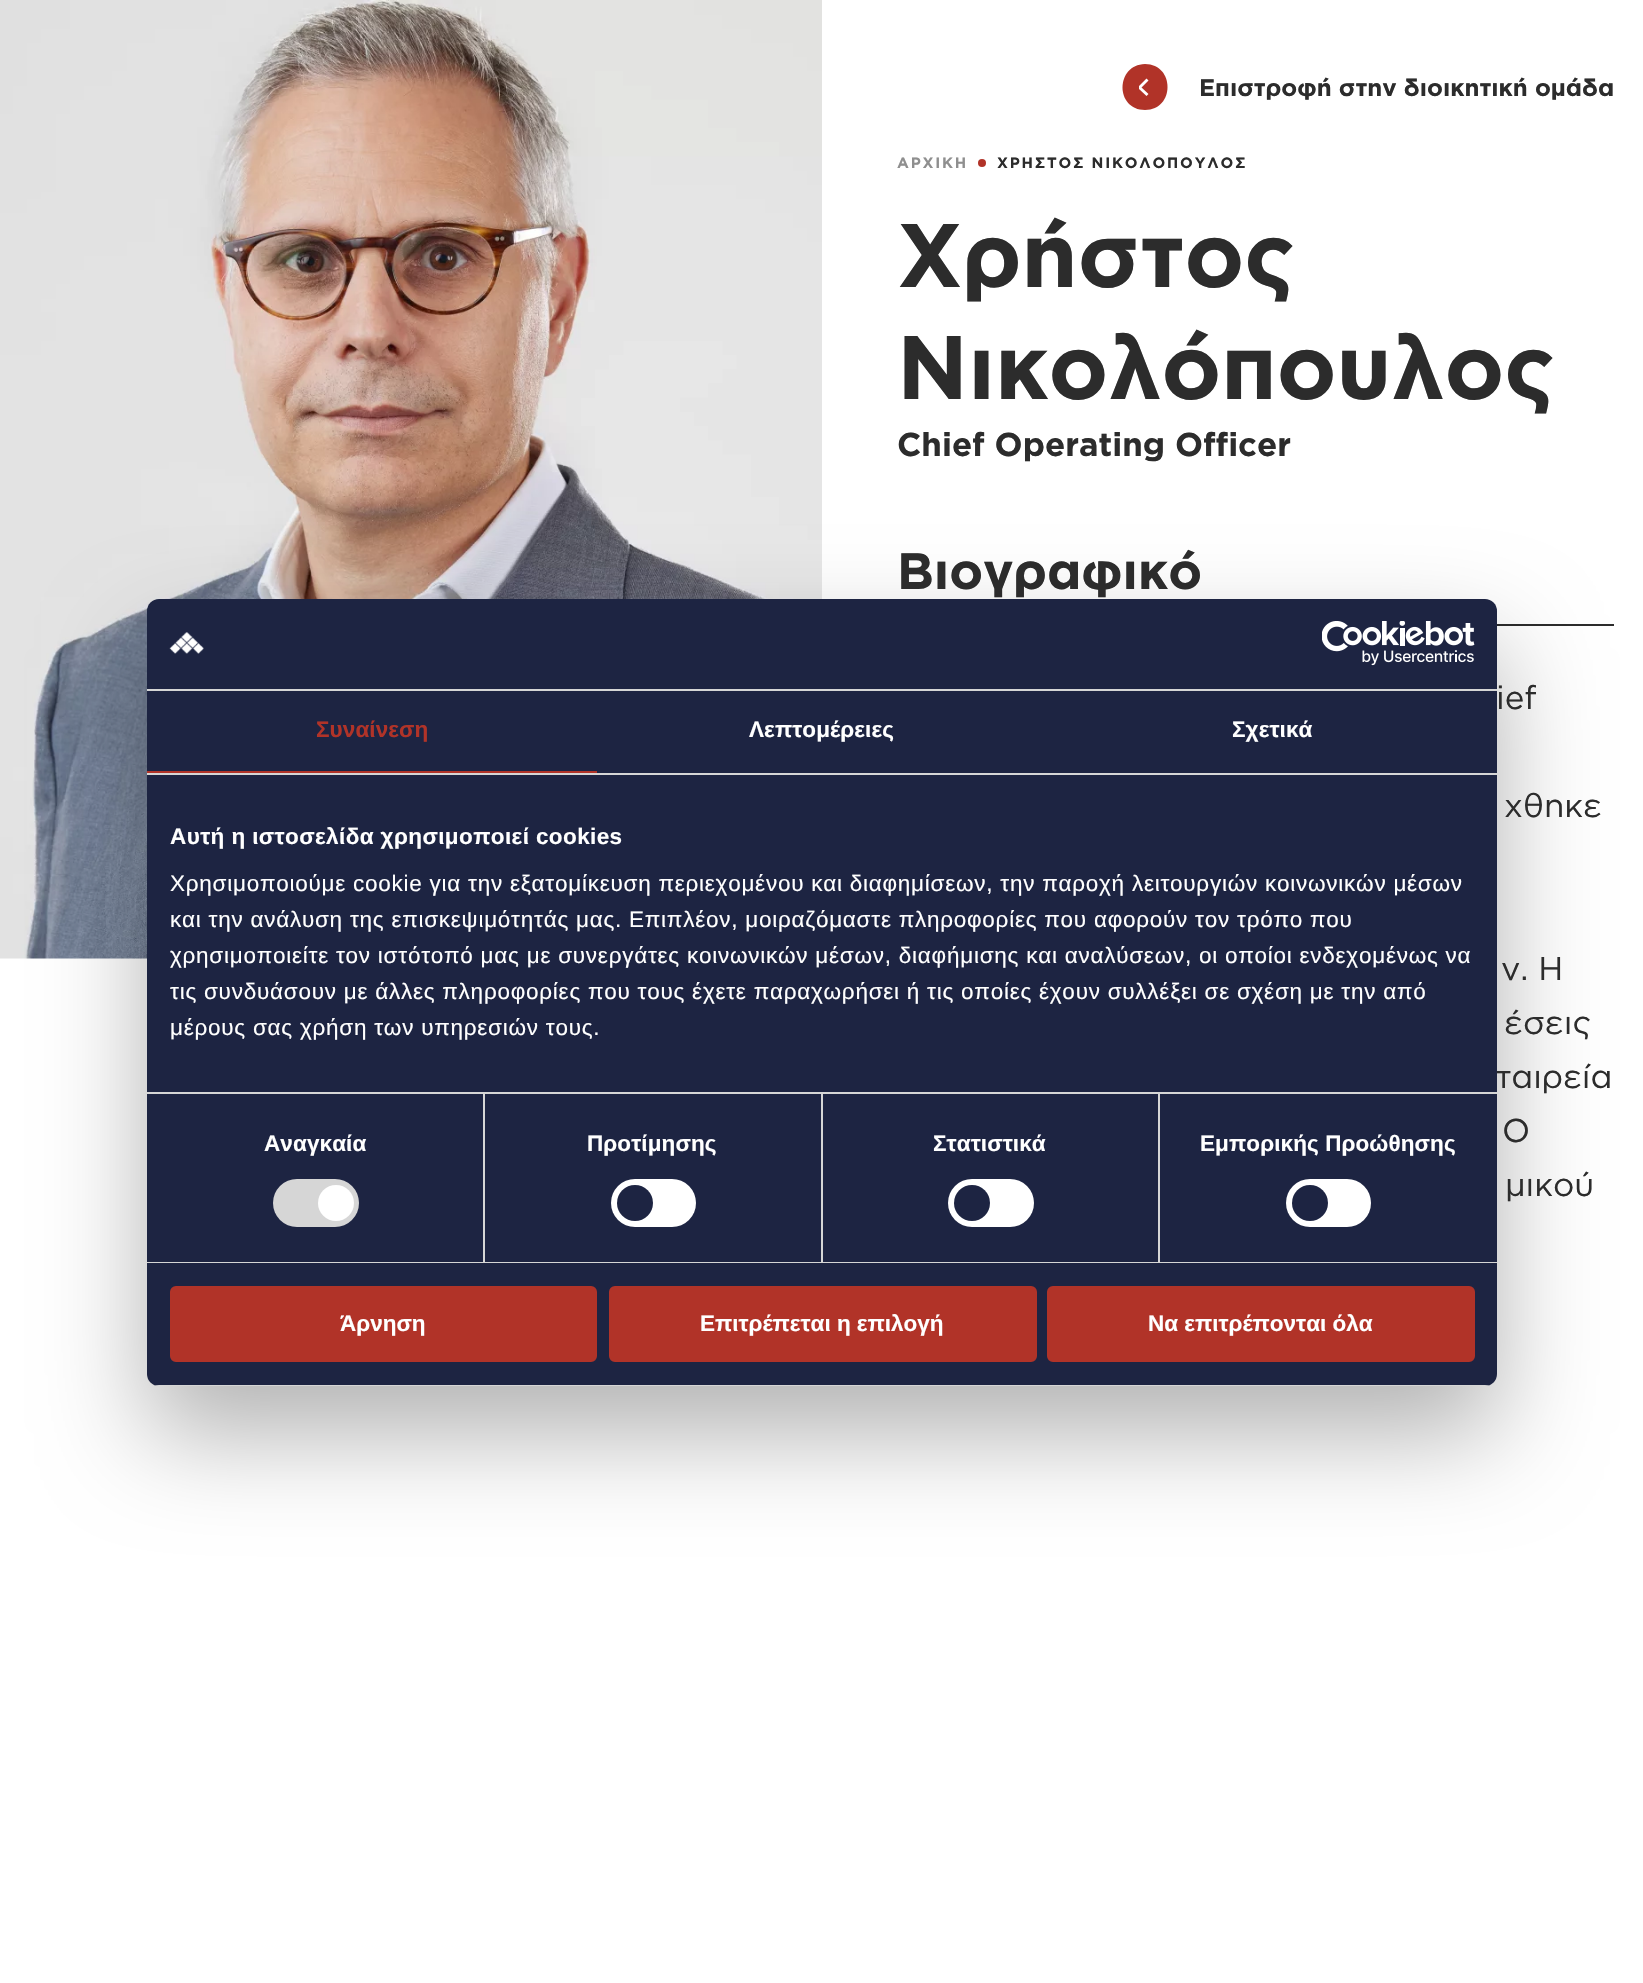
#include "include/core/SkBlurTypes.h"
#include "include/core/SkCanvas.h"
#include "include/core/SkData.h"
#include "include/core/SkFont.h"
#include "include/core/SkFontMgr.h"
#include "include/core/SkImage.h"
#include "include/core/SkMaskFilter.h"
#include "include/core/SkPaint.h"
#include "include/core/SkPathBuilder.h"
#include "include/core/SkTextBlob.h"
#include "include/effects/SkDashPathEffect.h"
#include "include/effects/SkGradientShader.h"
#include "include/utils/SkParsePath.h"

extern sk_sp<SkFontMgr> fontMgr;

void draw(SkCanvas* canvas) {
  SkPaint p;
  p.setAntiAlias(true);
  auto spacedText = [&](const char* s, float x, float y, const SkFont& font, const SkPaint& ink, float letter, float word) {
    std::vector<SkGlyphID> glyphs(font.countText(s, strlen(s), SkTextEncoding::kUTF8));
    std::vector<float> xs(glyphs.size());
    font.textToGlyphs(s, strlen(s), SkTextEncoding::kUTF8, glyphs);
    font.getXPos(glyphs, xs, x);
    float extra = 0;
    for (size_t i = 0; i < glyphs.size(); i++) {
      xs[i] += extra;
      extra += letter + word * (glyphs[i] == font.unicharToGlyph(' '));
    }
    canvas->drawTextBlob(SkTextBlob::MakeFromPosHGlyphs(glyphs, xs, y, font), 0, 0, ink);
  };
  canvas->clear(SK_ColorWHITE);
  canvas->drawImageRect(SkImages::DeferredFromEncodedData(SkData::MakeFromFileName("images/1.png")), SkRect::MakeLTRB(0, 0, 822, 959), SkSamplingOptions());
  p.setColor(SkColorSetRGB(177, 51, 40));
  canvas->drawPath(SkPathBuilder().moveTo(1145, 110).cubicTo(1115, 110, 1115, 65, 1145, 64).cubicTo(1175, 64, 1175, 110, 1145, 110).close().detach(), p);
  canvas->save();
  canvas->clipRect(SkRect::MakeLTRB(1139, 78, 1149, 96));
  p.setColor(SK_ColorWHITE);
  canvas->drawPath(SkPathBuilder().moveTo(1146.5f, 96).lineTo(1148.5f, 94).lineTo(1141.5f, 87.5f).lineTo(1148.5f, 80.5f).lineTo(1146.5f, 78.5f).lineTo(1137.5f, 87.5f).close().detach(), p);
  canvas->restore();
  p.setColor(SkColorSetRGB(177, 51, 40));
  canvas->drawCircle(982, 163, 4, p);
  p.setColor(SkColorSetRGB(44, 44, 44));
  canvas->drawRect(SkRect::MakeLTRB(1497, 624, 1614, 626), p);
  p.setColor(SkColorSetARGB(77, 0, 0, 0));
  p.setMaskFilter(SkMaskFilter::MakeBlur(kNormal_SkBlurStyle, 51));
  canvas->drawRoundRect(SkRect::MakeLTRB(147, 647, 1497, 1434), 12, 12, p);
  p.setMaskFilter(nullptr);
  p.setColor(SkColorSetRGB(29, 36, 66));
  canvas->drawRoundRect(SkRect::MakeLTRB(147, 599, 1497, 1386), 12, 12, p);
  p.setColor(SkColorSetRGB(214, 214, 214));
  canvas->drawRect(SkRect::MakeLTRB(147, 689, 1497, 691), p);
  canvas->drawImageRect(SkImages::DeferredFromEncodedData(SkData::MakeFromFileName("images/2.png")), SkRect::MakeLTRB(169, 632, 204, 654), SkSamplingOptions());
  canvas->drawImageRect(SkImages::DeferredFromEncodedData(SkData::MakeFromFileName("images/3.png")), SkRect::MakeLTRB(1322, 621, 1475, 666), SkSamplingOptions());
  canvas->drawRect(SkRect::MakeLTRB(147, 773, 1497, 775), p);
  p.setColor(SkColorSetRGB(177, 51, 40));
  canvas->drawRect(SkRect::MakeLTRB(147, 771, 597, 773), p);
  p.setColor(SkColorSetRGB(214, 214, 214));
  canvas->drawRect(SkRect::MakeLTRB(147, 1092, 1497, 1094), p);
  canvas->drawRect(SkRect::MakeLTRB(147, 1262, 1497, 1263), p);
  canvas->drawRect(SkRect::MakeLTRB(483, 1094, 485, 1262), p);
  canvas->drawRoundRect(SkRect::MakeLTRB(273, 1179, 359, 1227), 24, 24, p);
  p.setColor(SK_ColorWHITE);
  canvas->drawCircle(336, 1203, 18, p);
  p.setColor(SkColorSetRGB(214, 214, 214));
  canvas->drawRect(SkRect::MakeLTRB(821, 1094, 823, 1262), p);
  p.setColor(SK_ColorWHITE);
  canvas->drawRoundRect(SkRect::MakeLTRB(611, 1179, 696, 1227), 24, 24, p);
  p.setColor(SkColorSetRGB(29, 36, 66));
  canvas->drawCircle(635, 1203, 18, p);
  p.setColor(SkColorSetRGB(214, 214, 214));
  canvas->drawRect(SkRect::MakeLTRB(1158, 1094, 1160, 1262), p);
  p.setColor(SK_ColorWHITE);
  canvas->drawRoundRect(SkRect::MakeLTRB(948, 1179, 1034, 1227), 24, 24, p);
  p.setColor(SkColorSetRGB(29, 36, 66));
  canvas->drawCircle(972, 1203, 18, p);
  p.setColor(SK_ColorWHITE);
  canvas->drawRoundRect(SkRect::MakeLTRB(1286, 1179, 1371, 1227), 24, 24, p);
  p.setColor(SkColorSetRGB(29, 36, 66));
  canvas->drawCircle(1310, 1203, 18, p);
  canvas->save();
  canvas->clipPath(SkPathBuilder().moveTo(159, 599).lineTo(1485, 599).cubicTo(1491.5f, 599, 1497, 604.5f, 1497, 611).lineTo(1497, 1374).cubicTo(1497, 1380.5f, 1491.5f, 1386, 1485, 1386).lineTo(159, 1386).cubicTo(152.5f, 1386, 147, 1380.5f, 147, 1374).lineTo(147, 611).cubicTo(147, 604.5f, 152.5f, 599, 159, 599).close().detach(), true);
  p.setColor(SkColorSetRGB(214, 214, 214));
  canvas->drawRect(SkRect::MakeLTRB(147, 1385, 1497, 1386), p);
  canvas->restore();
  p.setColor(SkColorSetRGB(177, 51, 40));
  canvas->drawRoundRect(SkRect::MakeLTRB(171.5f, 1287.5f, 595.5f, 1360.5f), 4.5f, 4.5f, p);
  p.setStyle(SkPaint::kStroke_Style);
  p.setStrokeWidth(3);
  canvas->drawRoundRect(SkRect::MakeLTRB(171.5f, 1287.5f, 595.5f, 1360.5f), 4.5f, 4.5f, p);
  p.setStyle(SkPaint::kFill_Style);
  canvas->drawRoundRect(SkRect::MakeLTRB(610.5f, 1287.5f, 1035.5f, 1360.5f), 4.5f, 4.5f, p);
  p.setStyle(SkPaint::kStroke_Style);
  canvas->drawRoundRect(SkRect::MakeLTRB(610.5f, 1287.5f, 1035.5f, 1360.5f), 4.5f, 4.5f, p);
  p.setStyle(SkPaint::kFill_Style);
  canvas->drawRoundRect(SkRect::MakeLTRB(1048.5f, 1287.5f, 1473.5f, 1360.5f), 4.5f, 4.5f, p);
  p.setStyle(SkPaint::kStroke_Style);
  canvas->drawRoundRect(SkRect::MakeLTRB(1048.5f, 1287.5f, 1473.5f, 1360.5f), 4.5f, 4.5f, p);
  SkFont font1(fontMgr->matchFamilyStyle("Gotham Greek", SkFontStyle::Bold()), 24);
  font1.setSubpixel(true);
  p.setStyle(SkPaint::kFill_Style);
  p.setColor(SkColorSetRGB(44, 44, 44));
  canvas->drawString("Επιστροφή στην διοικητική ομάδα", 1199, 96, font1, p);
  SkFont font2(fontMgr->matchFamilyStyle("Gotham Greek", SkFontStyle::Bold()), 15);
  font2.setSubpixel(true);
  p.setColor(SkColorSetRGB(143, 143, 143));
  spacedText("ΑΡΧΙΚΗ", 897, 168, font2, p, 1.8f, 0);
  p.setColor(SkColorSetRGB(44, 44, 44));
  spacedText("ΧΡΗΣΤΟΣ ΝΙΚΟΛΟΠΟΥΛΟΣ", 997, 168, font2, p, 1.8f, 0);
  SkFont font3(fontMgr->matchFamilyStyle("Gotham Greek", SkFontStyle::Bold()), 90);
  font3.setSubpixel(true);
  canvas->drawString("Χρήστος", 897, 287, font3, p);
  canvas->drawString("Νικολόπουλος", 897, 399, font3, p);
  SkFont font4(fontMgr->matchFamilyStyle("Gotham Greek", SkFontStyle::Bold()), 33);
  font4.setSubpixel(true);
  canvas->drawString("Chief Operating Officer", 897, 456, font4, p);
  SkFont font5(fontMgr->matchFamilyStyle("Gotham Greek", SkFontStyle::Bold()), 51);
  font5.setSubpixel(true);
  canvas->drawString("Βιογραφικό", 897, 589, font5, p);
  SkFont font6(fontMgr->matchFamilyStyle("Gotham Greek", SkFontStyle::Normal()), 33);
  font6.setSubpixel(true);
  canvas->drawString("ief", 1496, 709, font6, p);
  canvas->drawString("χθηκε", 1504, 817, font6, p);
  canvas->drawString("ν. Η", 1501, 980, font6, p);
  canvas->drawString("έσεις", 1504, 1034, font6, p);
  canvas->drawString("ταιρεία", 1496, 1088, font6, p);
  canvas->drawString("Ο", 1502, 1142, font6, p);
  canvas->drawString("μικού", 1505, 1196, font6, p);
  SkFont font7(fontMgr->matchFamilyStyle("Liberation Sans", SkFontStyle::Bold()), 22.5f);
  font7.setSubpixel(true);
  p.setColor(SkColorSetRGB(177, 51, 40));
  spacedText("Συναίνεση", 316, 737, font7, p, 0.1f, 0);
  p.setColor(SK_ColorWHITE);
  spacedText("Λεπτομέρειες", 749, 737, font7, p, 0.1f, 0);
  spacedText("Σχετικά", 1232, 737, font7, p, 0.1f, 0);
  spacedText("Αυτή η ιστοσελίδα χρησιμοποιεί cookies", 170, 844, font7, p, 0.4f, 0);
  SkFont font8(fontMgr->matchFamilyStyle("Liberation Sans", SkFontStyle::Normal()), 22.5f);
  font8.setSubpixel(true);
  spacedText("Χρησιμοποιούμε cookie για την εξατομίκευση περιεχομένου και διαφημίσεων, την παροχή λειτουργιών κοινωνικών μέσων", 170, 891, font8, p, 0.75f, 0);
  spacedText("και την ανάλυση της επισκεψιμότητάς μας. Επιπλέον, μοιραζόμαστε πληροφορίες που αφορούν τον τρόπο που", 170, 927, font8, p, 0.75f, 0);
  spacedText("χρησιμοποιείτε τον ιστότοπό μας με συνεργάτες κοινωνικών μέσων, διαφήμισης και αναλύσεων, οι οποίοι ενδεχομένως να", 170, 963, font8, p, 0.75f, 0);
  spacedText("τις συνδυάσουν με άλλες πληροφορίες που τους έχετε παραχωρήσει ή τις οποίες έχουν συλλέξει σε σχέση με την από", 170, 999, font8, p, 0.75f, 0);
  spacedText("μέρους σας χρήση των υπηρεσιών τους.", 170, 1035, font8, p, 0.75f, 0);
  spacedText("Αναγκαία", 264, 1151, font7, p, 0.1f, 0);
  spacedText("Προτίμησης", 587, 1151, font7, p, 0.1f, 0);
  spacedText("Στατιστικά", 933, 1151, font7, p, 0.1f, 0);
  spacedText("Εμπορικής Προώθησης", 1200, 1151, font7, p, 0.1f, 0);
  canvas->drawString("Άρνηση", 340, 1331, font7, p);
  canvas->drawString("Επιτρέπεται η επιλογή", 700, 1331, font7, p);
  canvas->drawString("Να επιτρέπονται όλα", 1148, 1331, font7, p);
}
